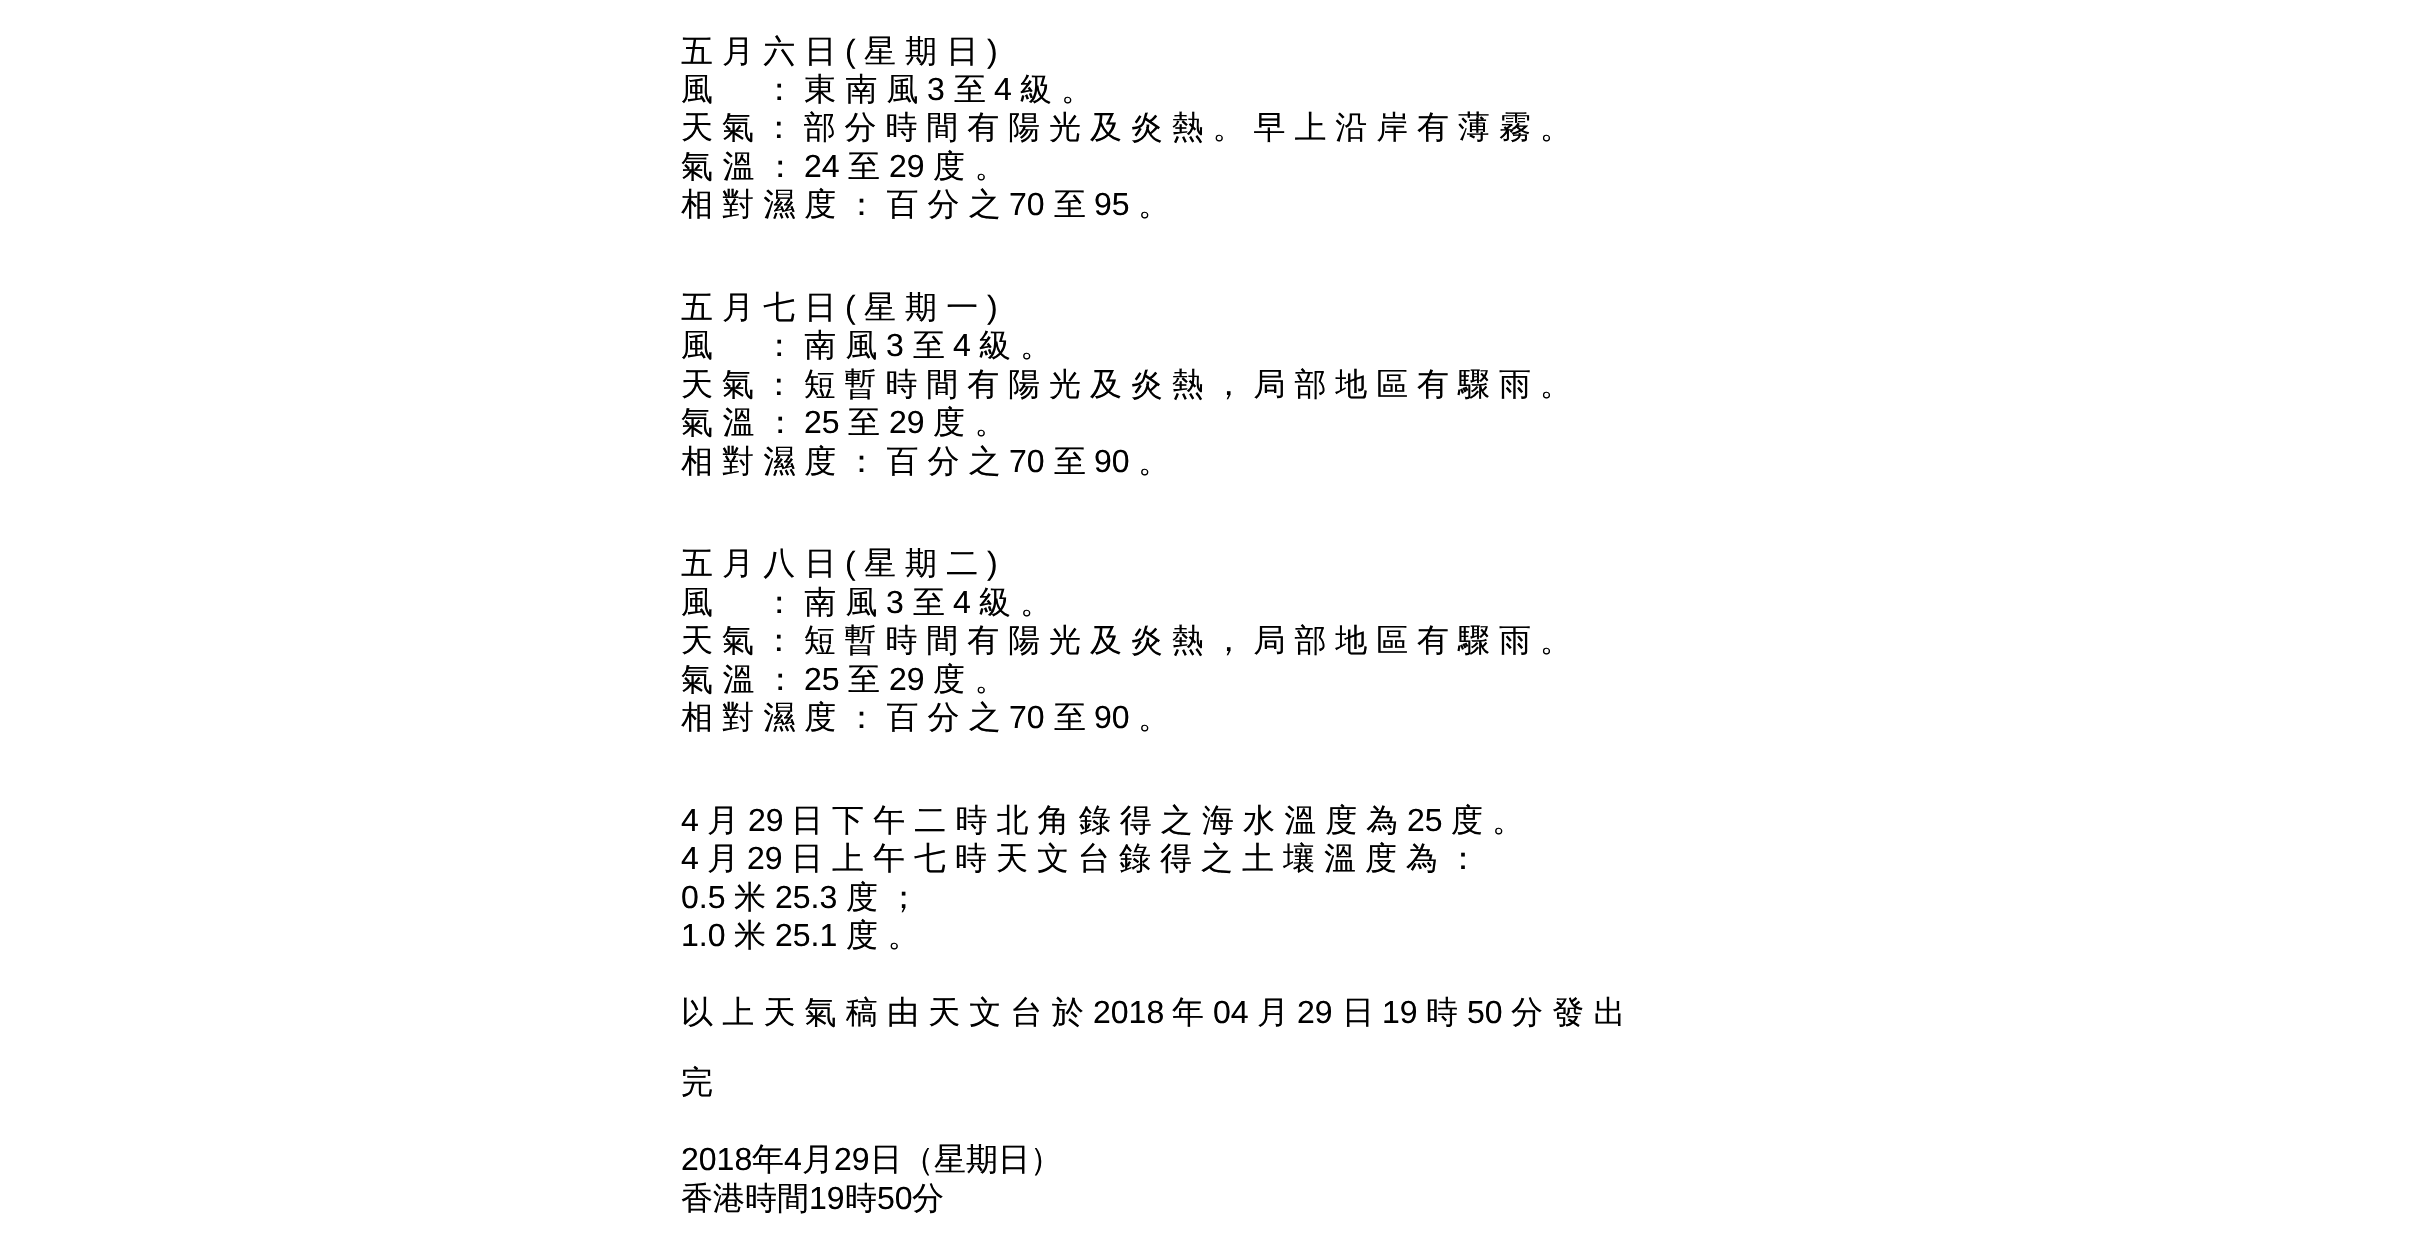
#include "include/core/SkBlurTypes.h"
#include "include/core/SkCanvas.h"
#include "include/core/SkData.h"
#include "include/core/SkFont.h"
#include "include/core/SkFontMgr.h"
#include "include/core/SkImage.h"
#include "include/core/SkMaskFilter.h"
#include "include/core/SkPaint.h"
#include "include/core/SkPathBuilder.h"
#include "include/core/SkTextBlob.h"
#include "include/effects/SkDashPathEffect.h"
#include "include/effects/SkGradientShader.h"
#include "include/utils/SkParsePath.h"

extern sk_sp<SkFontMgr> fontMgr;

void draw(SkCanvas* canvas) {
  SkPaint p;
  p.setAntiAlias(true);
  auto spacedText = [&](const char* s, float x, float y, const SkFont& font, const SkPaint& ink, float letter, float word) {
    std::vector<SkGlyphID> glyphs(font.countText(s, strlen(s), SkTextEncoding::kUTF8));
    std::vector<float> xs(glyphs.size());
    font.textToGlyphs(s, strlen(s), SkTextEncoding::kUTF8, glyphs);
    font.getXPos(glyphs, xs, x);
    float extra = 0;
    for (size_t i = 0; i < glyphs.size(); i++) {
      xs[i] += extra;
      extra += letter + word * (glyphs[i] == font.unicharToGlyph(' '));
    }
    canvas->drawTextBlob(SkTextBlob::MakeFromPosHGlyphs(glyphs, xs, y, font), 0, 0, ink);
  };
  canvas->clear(SK_ColorWHITE);
  SkFont font1(fontMgr->matchFamilyStyle("WenQuanYi Zen Hei", SkFontStyle(500, SkFontStyle::kNormal_Width, SkFontStyle::kUpright_Slant)), 32);
  font1.setSubpixel(true);
  p.setColor(SK_ColorBLACK);
  spacedText("五 月 六 日", 681, 62, font1, p, 0, -0.5f);
  SkFont font2(fontMgr->matchFamilyStyle("Liberation Sans", SkFontStyle::Normal()), 32);
  font2.setSubpixel(true);
  canvas->drawString("(", 845, 62, font2, p);
  spacedText("星 期 日", 864, 62, font1, p, 0, -0.5f);
  canvas->drawString(")", 987, 62, font2, p);
  spacedText("風 　 ： 東 南 風", 681, 100, font1, p, 0, -0.5f);
  canvas->drawString("3", 927, 100, font2, p);
  canvas->drawString("至", 954, 100, font1, p);
  canvas->drawString("4", 994, 100, font2, p);
  spacedText("級 。", 1020, 100, font1, p, 0, -0.5f);
  spacedText("天 氣 ： 部 分 時 間 有 陽 光 及 炎 熱 。 早 上 沿 岸 有 薄 霧 。", 681, 138, font1, p, 0, -0.7f);
  canvas->drawString("氣 溫 ：", 681, 177, font1, p);
  canvas->drawString("24", 804, 177, font2, p);
  canvas->drawString("至", 848, 177, font1, p);
  canvas->drawString("29", 889, 177, font2, p);
  canvas->drawString("度 。", 933, 177, font1, p);
  spacedText("相 對 濕 度 ： 百 分 之", 681, 215, font1, p, 0, -0.5f);
  canvas->drawString("70", 1009, 215, font2, p);
  canvas->drawString("至", 1054, 215, font1, p);
  canvas->drawString("95", 1094, 215, font2, p);
  canvas->drawString("。", 1138, 215, font1, p);
  spacedText("五 月 七 日", 681, 318, font1, p, 0, -0.5f);
  canvas->drawString("(", 845, 318, font2, p);
  spacedText("星 期 一", 864, 318, font1, p, 0, -0.5f);
  canvas->drawString(")", 987, 318, font2, p);
  spacedText("風 　 ： 南 風", 681, 356, font1, p, 0, -0.5f);
  canvas->drawString("3", 886, 356, font2, p);
  canvas->drawString("至", 913, 356, font1, p);
  canvas->drawString("4", 953, 356, font2, p);
  spacedText("級 。", 979, 356, font1, p, 0, -0.5f);
  spacedText("天 氣 ： 短 暫 時 間 有 陽 光 及 炎 熱 ， 局 部 地 區 有 驟 雨 。", 681, 395, font1, p, 0, -0.7f);
  canvas->drawString("氣 溫 ：", 681, 433, font1, p);
  canvas->drawString("25", 804, 433, font2, p);
  canvas->drawString("至", 848, 433, font1, p);
  canvas->drawString("29", 889, 433, font2, p);
  canvas->drawString("度 。", 933, 433, font1, p);
  spacedText("相 對 濕 度 ： 百 分 之", 681, 472, font1, p, 0, -0.5f);
  canvas->drawString("70", 1009, 472, font2, p);
  canvas->drawString("至", 1054, 472, font1, p);
  canvas->drawString("90", 1094, 472, font2, p);
  canvas->drawString("。", 1138, 472, font1, p);
  spacedText("五 月 八 日", 681, 574, font1, p, 0, -0.5f);
  canvas->drawString("(", 845, 574, font2, p);
  spacedText("星 期 二", 864, 574, font1, p, 0, -0.5f);
  canvas->drawString(")", 987, 574, font2, p);
  spacedText("風 　 ： 南 風", 681, 613, font1, p, 0, -0.5f);
  canvas->drawString("3", 886, 613, font2, p);
  canvas->drawString("至", 913, 613, font1, p);
  canvas->drawString("4", 953, 613, font2, p);
  spacedText("級 。", 979, 613, font1, p, 0, -0.5f);
  spacedText("天 氣 ： 短 暫 時 間 有 陽 光 及 炎 熱 ， 局 部 地 區 有 驟 雨 。", 681, 651, font1, p, 0, -0.7f);
  canvas->drawString("氣 溫 ：", 681, 690, font1, p);
  canvas->drawString("25", 804, 690, font2, p);
  canvas->drawString("至", 848, 690, font1, p);
  canvas->drawString("29", 889, 690, font2, p);
  canvas->drawString("度 。", 933, 690, font1, p);
  spacedText("相 對 濕 度 ： 百 分 之", 681, 728, font1, p, 0, -0.5f);
  canvas->drawString("70", 1009, 728, font2, p);
  canvas->drawString("至", 1054, 728, font1, p);
  canvas->drawString("90", 1094, 728, font2, p);
  canvas->drawString("。", 1138, 728, font1, p);
  canvas->drawString("4", 681, 831, font2, p);
  canvas->drawString("月", 707, 831, font1, p);
  canvas->drawString("29", 748, 831, font2, p);
  spacedText("日 下 午 二 時 北 角 錄 得 之 海 水 溫 度 為", 791, 831, font1, p, 0, -0.5f);
  canvas->drawString("25", 1407, 831, font2, p);
  spacedText("度 。", 1451, 831, font1, p, 0, -0.5f);
  canvas->drawString("4", 681, 869, font2, p);
  canvas->drawString("月", 707, 869, font1, p);
  canvas->drawString("29", 747, 869, font2, p);
  spacedText("日 上 午 七 時 天 文 台 錄 得 之 土 壤 溫 度 為 ：", 791, 869, font1, p, 0, -0.6f);
  canvas->drawString("0.5", 681, 908, font2, p);
  canvas->drawString("米", 734, 908, font1, p);
  canvas->drawString("25.3", 775, 908, font2, p);
  canvas->drawString("度 ；", 846, 908, font1, p);
  canvas->drawString("1.0", 681, 946, font2, p);
  canvas->drawString("米", 734, 946, font1, p);
  canvas->drawString("25.1", 775, 946, font2, p);
  canvas->drawString("度 。", 846, 946, font1, p);
  spacedText("以 上 天 氣 稿 由 天 文 台 於", 681, 1023, font1, p, 0, -0.4f);
  canvas->drawString("2018", 1093, 1023, font2, p);
  canvas->drawString("年", 1172, 1023, font1, p);
  canvas->drawString("04", 1213, 1023, font2, p);
  canvas->drawString("月", 1257, 1023, font1, p);
  canvas->drawString("29", 1297, 1023, font2, p);
  canvas->drawString("日", 1342, 1023, font1, p);
  canvas->drawString("19", 1382, 1023, font2, p);
  canvas->drawString("時", 1426, 1023, font1, p);
  canvas->drawString("50", 1467, 1023, font2, p);
  spacedText("分 發 出", 1511, 1023, font1, p, 0, -0.4f);
  canvas->drawString("完", 681, 1093, font1, p);
  canvas->drawString("2018", 681, 1170, font2, p);
  canvas->drawString("年", 752, 1170, font1, p);
  canvas->drawString("4", 784, 1170, font2, p);
  canvas->drawString("月", 802, 1170, font1, p);
  canvas->drawString("29", 834, 1170, font2, p);
  canvas->drawString("日（星期日）", 870, 1170, font1, p);
  canvas->drawString("香港時間", 681, 1209, font1, p);
  canvas->drawString("19", 809, 1209, font2, p);
  canvas->drawString("時", 845, 1209, font1, p);
  canvas->drawString("50", 877, 1209, font2, p);
  canvas->drawString("分", 912, 1209, font1, p);
}
